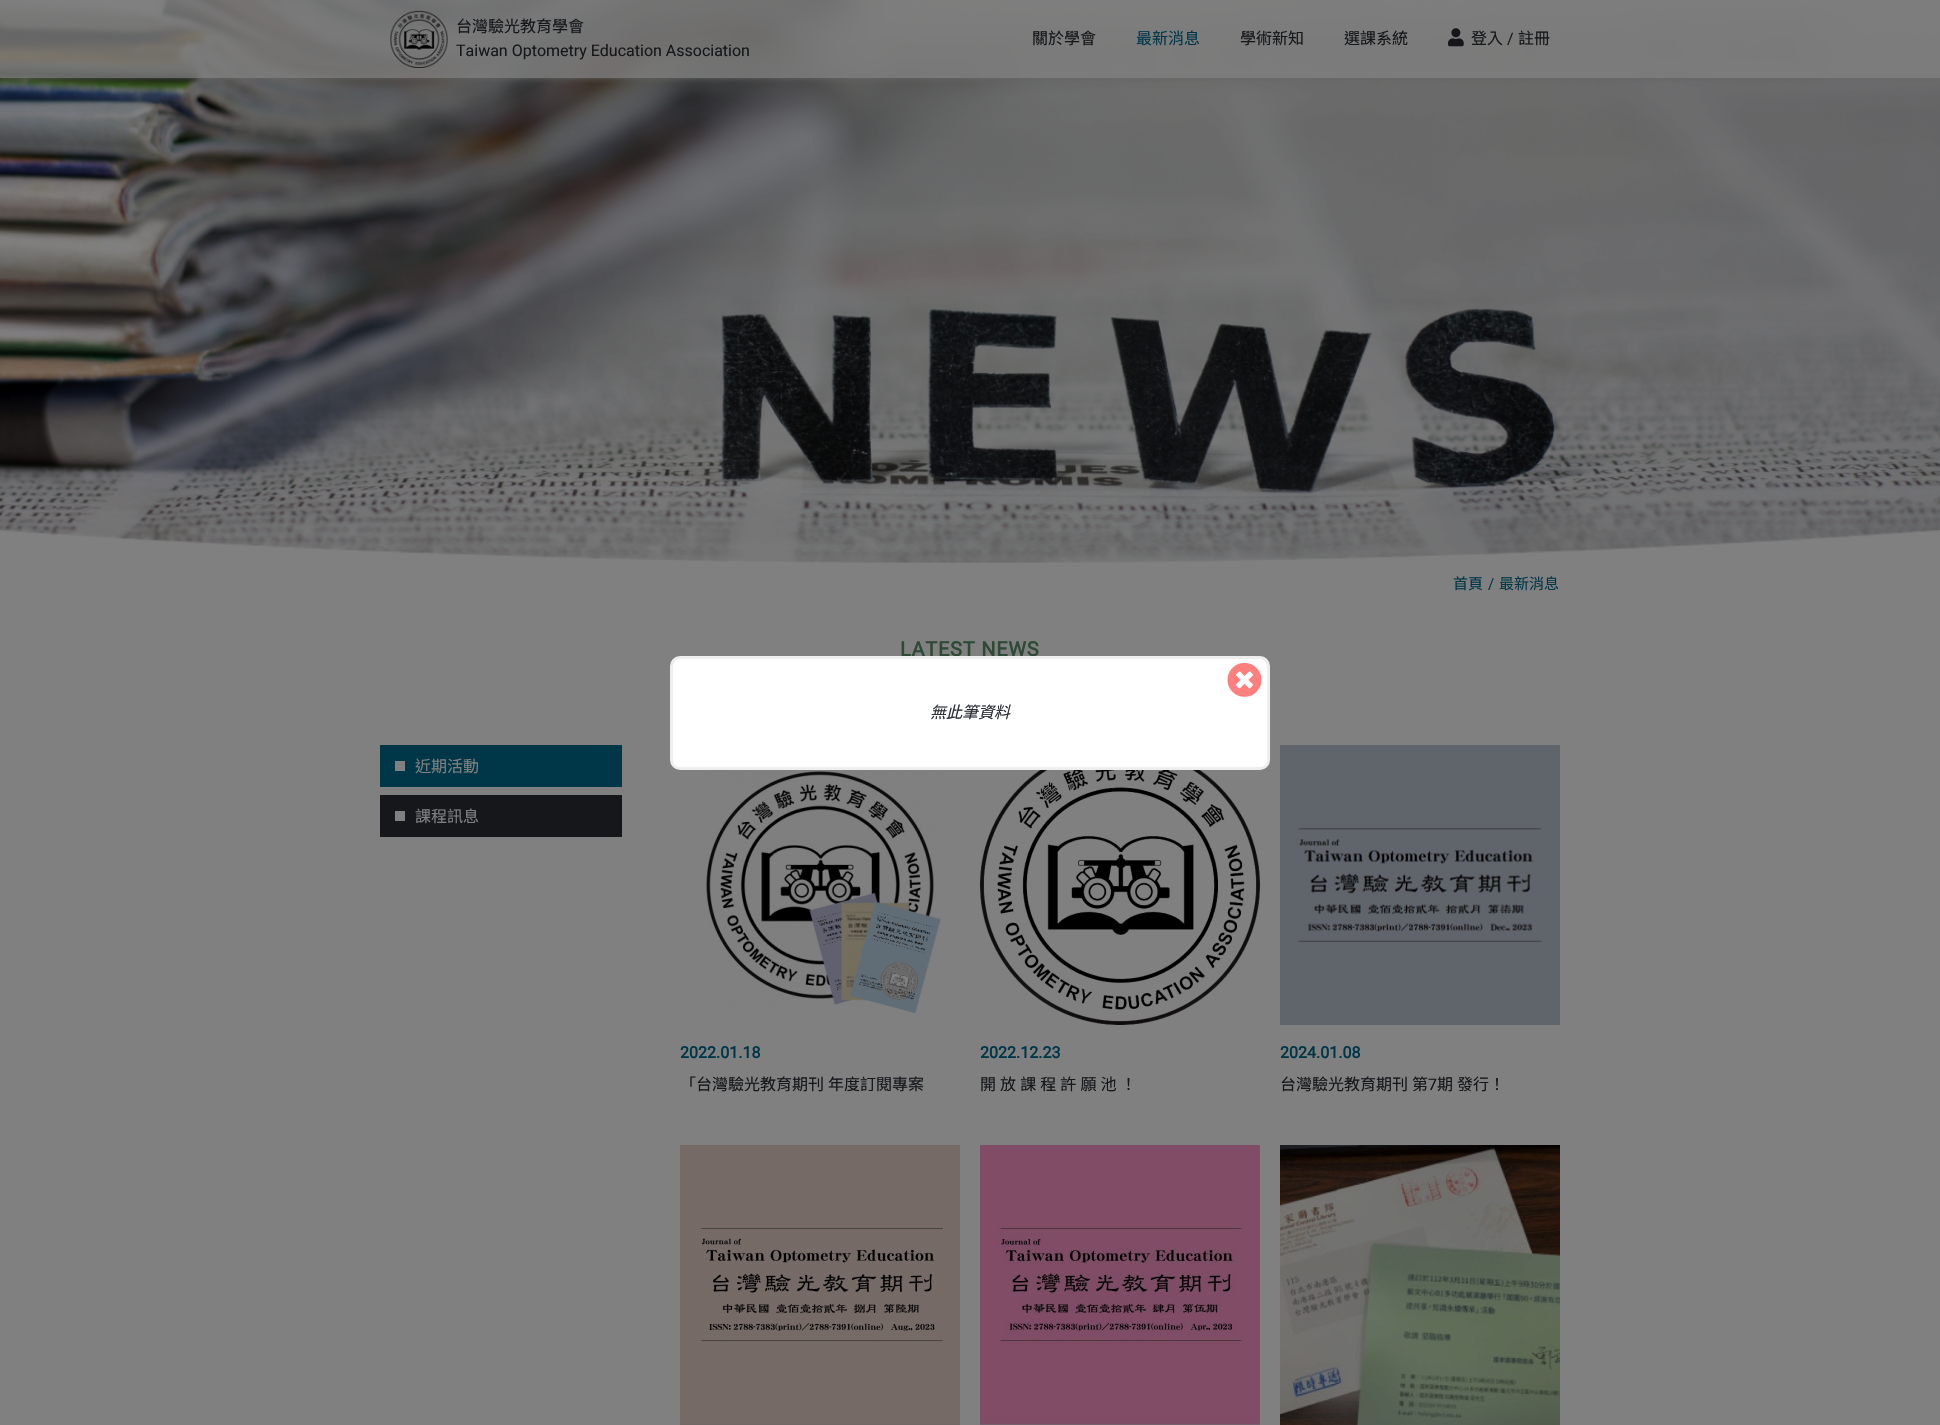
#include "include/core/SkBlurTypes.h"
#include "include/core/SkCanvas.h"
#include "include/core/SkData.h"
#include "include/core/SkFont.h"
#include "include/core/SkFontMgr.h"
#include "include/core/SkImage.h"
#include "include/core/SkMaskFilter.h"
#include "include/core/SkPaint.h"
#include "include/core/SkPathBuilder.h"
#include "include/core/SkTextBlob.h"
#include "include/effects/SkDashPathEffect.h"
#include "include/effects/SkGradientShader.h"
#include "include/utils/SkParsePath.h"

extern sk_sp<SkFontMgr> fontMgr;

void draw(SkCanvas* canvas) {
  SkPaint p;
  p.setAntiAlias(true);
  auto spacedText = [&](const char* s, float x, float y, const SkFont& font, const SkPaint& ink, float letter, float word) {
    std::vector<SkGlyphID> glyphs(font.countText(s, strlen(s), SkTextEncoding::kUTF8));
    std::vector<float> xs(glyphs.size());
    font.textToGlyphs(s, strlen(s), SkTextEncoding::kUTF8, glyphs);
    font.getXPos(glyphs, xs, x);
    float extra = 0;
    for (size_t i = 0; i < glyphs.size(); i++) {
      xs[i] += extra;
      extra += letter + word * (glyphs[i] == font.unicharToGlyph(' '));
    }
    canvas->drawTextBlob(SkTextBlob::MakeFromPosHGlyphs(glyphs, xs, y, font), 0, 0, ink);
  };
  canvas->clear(SkColorSetRGB(128, 128, 128));
  canvas->drawImageRect(SkImages::DeferredFromEncodedData(SkData::MakeFromFileName("images/3.png")), SkRect::MakeLTRB(0, 0, 1940, 563), SkSamplingOptions());
  canvas->save();
  canvas->clipRect(SkRect::MakeLTRB(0, 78, 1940, 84));
  p.setColor(SkColorSetRGB(102, 102, 102));
  p.setMaskFilter(SkMaskFilter::MakeBlur(kNormal_SkBlurStyle, 3));
  canvas->drawRect(SkRect::MakeLTRB(0, 0, 1940, 78), p);
  p.setMaskFilter(nullptr);
  canvas->restore();
  p.setColor(SkColorSetARGB(204, 128, 128, 128));
  canvas->drawRect(SkRect::MakeLTRB(0, 0, 1940, 78), p);
  canvas->drawImageRect(SkImages::DeferredFromEncodedData(SkData::MakeFromFileName("images/1.png")), SkRect::MakeLTRB(390, 10, 448, 68), SkSamplingOptions());
  canvas->drawImageRect(SkImages::DeferredFromEncodedData(SkData::MakeFromFileName("images/2.png")), SkRect::MakeLTRB(1448, 28, 1464, 47), SkSamplingOptions());
  canvas->drawImageRect(SkImages::DeferredFromEncodedData(SkData::MakeFromFileName("images/4.png")), SkRect::MakeLTRB(0, 530, 1940, 563), SkSamplingOptions());
  p.setColor(SkColorSetRGB(0, 55, 72));
  canvas->drawRect(SkRect::MakeLTRB(380, 745, 622, 787), p);
  p.setColor(SkColorSetRGB(128, 128, 128));
  canvas->drawRect(SkRect::MakeLTRB(395, 761, 405, 771), p);
  p.setColor(SkColorSetRGB(21, 23, 26));
  canvas->drawRect(SkRect::MakeLTRB(380, 795, 622, 837), p);
  p.setColor(SkColorSetRGB(128, 128, 128));
  canvas->drawRect(SkRect::MakeLTRB(395, 811, 405, 821), p);
  canvas->drawImageRect(SkImages::DeferredFromEncodedData(SkData::MakeFromFileName("images/5.png")), SkRect::MakeLTRB(706, 771, 941, 1014), SkSamplingOptions());
  canvas->drawImageRect(SkImages::DeferredFromEncodedData(SkData::MakeFromFileName("images/6.png")), SkRect::MakeLTRB(980, 770, 1260, 1025), SkSamplingOptions());
  canvas->drawImageRect(SkImages::DeferredFromEncodedData(SkData::MakeFromFileName("images/7.png")), SkRect::MakeLTRB(1280, 745, 1560, 1025), SkSamplingOptions());
  canvas->drawImageRect(SkImages::DeferredFromEncodedData(SkData::MakeFromFileName("images/8.png")), SkRect::MakeLTRB(680, 1145, 960, 1425), SkSamplingOptions());
  canvas->drawImageRect(SkImages::DeferredFromEncodedData(SkData::MakeFromFileName("images/9.png")), SkRect::MakeLTRB(980, 1145, 1260, 1425), SkSamplingOptions());
  canvas->drawImageRect(SkImages::DeferredFromEncodedData(SkData::MakeFromFileName("images/10.png")), SkRect::MakeLTRB(1280, 1145, 1560, 1425), SkSamplingOptions());
  SkFont font1(fontMgr->matchFamilyStyle("Noto Sans CJK TC", SkFontStyle::Normal()), 16);
  font1.setSubpixel(true);
  p.setColor(SkColorSetRGB(21, 23, 26));
  canvas->drawString("台灣驗光教育學會", 456, 32, font1, p);
  SkFont font2(fontMgr->matchFamilyStyle("Roboto", SkFontStyle::Normal()), 16);
  font2.setSubpixel(true);
  canvas->drawString("Taiwan Optometry Education Association", 456, 56, font2, p);
  canvas->drawString("關於學會", 1032, 44, font1, p);
  p.setColor(SkColorSetRGB(0, 55, 72));
  canvas->drawString("最新消息", 1136, 44, font1, p);
  p.setColor(SkColorSetRGB(21, 23, 26));
  canvas->drawString("學術新知", 1240, 44, font1, p);
  canvas->drawString("選課系統", 1344, 44, font1, p);
  canvas->drawString("登入", 1471, 44, font1, p);
  canvas->drawString("/", 1507, 44, font2, p);
  canvas->drawString("註冊", 1518, 44, font1, p);
  SkFont font3(fontMgr->matchFamilyStyle("Noto Sans CJK TC", SkFontStyle::Normal()), 15);
  font3.setSubpixel(true);
  p.setColor(SkColorSetRGB(0, 55, 72));
  canvas->drawString("首頁", 1453, 589, font3, p);
  SkFont font4(fontMgr->matchFamilyStyle("Roboto", SkFontStyle::Normal()), 15);
  font4.setSubpixel(true);
  canvas->drawString("/", 1488, 589, font4, p);
  canvas->drawString("最新消息", 1499, 589, font3, p);
  SkFont font5(fontMgr->matchFamilyStyle("Roboto", SkFontStyle::Bold()), 20);
  font5.setSubpixel(true);
  p.setColor(SkColorSetRGB(46, 74, 55));
  spacedText("LATEST NEWS", 900, 656, font5, p, 0.75f, 0);
  p.setColor(SkColorSetRGB(128, 128, 128));
  canvas->drawString("近期活動", 415, 772, font1, p);
  canvas->drawString("課程訊息", 415, 822, font1, p);
  SkFont font6(fontMgr->matchFamilyStyle("Roboto", SkFontStyle::Bold()), 16);
  font6.setSubpixel(true);
  p.setColor(SkColorSetRGB(0, 55, 72));
  canvas->drawString("2022.01.18", 680, 1058, font6, p);
  p.setColor(SkColorSetRGB(21, 23, 26));
  spacedText("「台灣驗光教育期刊 年度訂閱專案", 680, 1090, font1, p, 0, 0.5f);
  p.setColor(SkColorSetRGB(0, 55, 72));
  canvas->drawString("2022.12.23", 980, 1058, font6, p);
  p.setColor(SkColorSetRGB(21, 23, 26));
  spacedText("開 放 課 程 許 願 池 ！", 980, 1090, font1, p, 0, 0.5f);
  p.setColor(SkColorSetRGB(0, 55, 72));
  canvas->drawString("2024.01.08", 1280, 1058, font6, p);
  p.setColor(SkColorSetRGB(21, 23, 26));
  spacedText("台灣驗光教育期刊 第", 1280, 1090, font1, p, 0, 0.5f);
  canvas->drawString("7", 1428, 1090, font2, p);
  spacedText("期 發行！", 1437, 1090, font1, p, 0, 0.5f);
  p.setColor(SK_ColorWHITE);
  canvas->drawRoundRect(SkRect::MakeLTRB(671.5f, 657.5f, 1268.5f, 768.5f), 8.5f, 8.5f, p);
  p.setStyle(SkPaint::kStroke_Style);
  p.setStrokeWidth(3);
  p.setColor(SkColorSetRGB(238, 238, 238));
  canvas->drawRoundRect(SkRect::MakeLTRB(671.5f, 657.5f, 1268.5f, 768.5f), 8.5f, 8.5f, p);
  canvas->drawImageRect(SkImages::DeferredFromEncodedData(SkData::MakeFromFileName("images/11.png")), SkRect::MakeLTRB(1227, 662, 1262, 697), SkSamplingOptions());
  SkFont font7(fontMgr->matchFamilyStyle("Noto Sans CJK TC", SkFontStyle::Italic()), 16);
  font7.setSubpixel(true);
  p.setStyle(SkPaint::kFill_Style);
  p.setColor(SkColorSetRGB(42, 45, 52));
  canvas->drawString("無此筆資料", 930, 718, font7, p);
}
